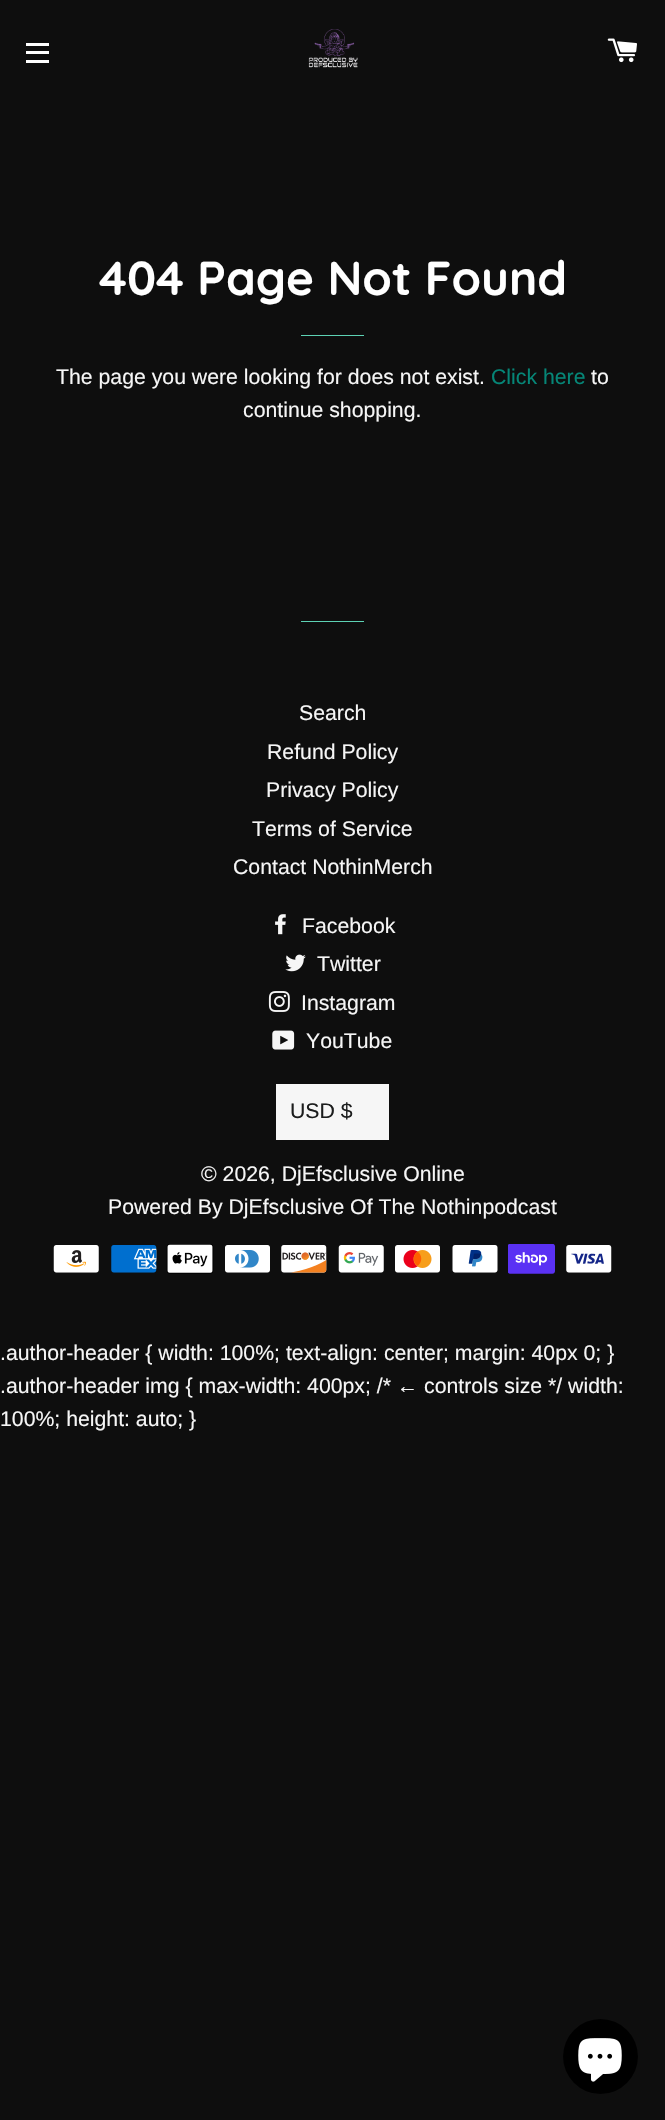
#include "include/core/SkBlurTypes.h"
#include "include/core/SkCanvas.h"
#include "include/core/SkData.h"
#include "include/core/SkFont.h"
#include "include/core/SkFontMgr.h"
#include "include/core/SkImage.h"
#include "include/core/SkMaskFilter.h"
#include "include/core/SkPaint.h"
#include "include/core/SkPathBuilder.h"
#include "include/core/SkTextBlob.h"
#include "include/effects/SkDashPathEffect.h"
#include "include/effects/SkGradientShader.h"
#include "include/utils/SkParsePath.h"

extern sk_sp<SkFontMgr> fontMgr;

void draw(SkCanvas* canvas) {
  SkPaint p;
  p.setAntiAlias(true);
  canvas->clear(SkColorSetRGB(14, 14, 14));
  p.setColor(SK_ColorWHITE);
  canvas->drawRect(SkRect::MakeLTRB(26, 43, 49, 46), p);
  canvas->drawRect(SkRect::MakeLTRB(26, 51, 49, 54), p);
  canvas->drawRect(SkRect::MakeLTRB(26, 60, 49, 63), p);
  canvas->drawImageRect(SkImages::DeferredFromEncodedData(SkData::MakeFromFileName("images/1.png")), SkRect::MakeLTRB(308, 29, 358, 68), SkSamplingOptions());
  canvas->drawImageRect(SkImages::DeferredFromEncodedData(SkData::MakeFromFileName("images/2.png")), SkRect::MakeLTRB(607, 38, 637, 63), SkSamplingOptions());
  p.setColor(SkColorSetRGB(93, 210, 180));
  canvas->drawRect(SkRect::MakeLTRB(301, 335, 364, 336), p);
  canvas->drawRect(SkRect::MakeLTRB(301, 621, 364, 622), p);
  canvas->drawImageRect(SkImages::DeferredFromEncodedData(SkData::MakeFromFileName("images/3.png")), SkRect::MakeLTRB(275, 914, 286, 935), SkSamplingOptions());
  canvas->drawImageRect(SkImages::DeferredFromEncodedData(SkData::MakeFromFileName("images/4.png")), SkRect::MakeLTRB(285, 954, 306, 972), SkSamplingOptions());
  canvas->drawImageRect(SkImages::DeferredFromEncodedData(SkData::MakeFromFileName("images/5.png")), SkRect::MakeLTRB(268, 991, 290, 1012), SkSamplingOptions());
  canvas->drawImageRect(SkImages::DeferredFromEncodedData(SkData::MakeFromFileName("images/6.png")), SkRect::MakeLTRB(272, 1030, 295, 1050), SkSamplingOptions());
  p.setColor(SkColorSetRGB(246, 246, 246));
  canvas->drawRect(SkRect::MakeLTRB(276, 1084, 389, 1140), p);
  canvas->drawImageRect(SkImages::DeferredFromEncodedData(SkData::MakeFromFileName("images/7.png")), SkRect::MakeLTRB(53, 1245, 99, 1273), SkSamplingOptions());
  canvas->drawImageRect(SkImages::DeferredFromEncodedData(SkData::MakeFromFileName("images/8.png")), SkRect::MakeLTRB(111, 1245, 157, 1273), SkSamplingOptions());
  canvas->drawImageRect(SkImages::DeferredFromEncodedData(SkData::MakeFromFileName("images/9.png")), SkRect::MakeLTRB(166, 1244, 214, 1274), SkSamplingOptions());
  canvas->drawImageRect(SkImages::DeferredFromEncodedData(SkData::MakeFromFileName("images/10.png")), SkRect::MakeLTRB(225, 1245, 270, 1273), SkSamplingOptions());
  canvas->drawImageRect(SkImages::DeferredFromEncodedData(SkData::MakeFromFileName("images/11.png")), SkRect::MakeLTRB(281, 1245, 327, 1273), SkSamplingOptions());
  canvas->drawImageRect(SkImages::DeferredFromEncodedData(SkData::MakeFromFileName("images/12.png")), SkRect::MakeLTRB(338, 1245, 384, 1273), SkSamplingOptions());
  canvas->drawImageRect(SkImages::DeferredFromEncodedData(SkData::MakeFromFileName("images/13.png")), SkRect::MakeLTRB(395, 1245, 440, 1273), SkSamplingOptions());
  canvas->drawImageRect(SkImages::DeferredFromEncodedData(SkData::MakeFromFileName("images/14.png")), SkRect::MakeLTRB(452, 1245, 498, 1273), SkSamplingOptions());
  canvas->drawImageRect(SkImages::DeferredFromEncodedData(SkData::MakeFromFileName("images/15.png")), SkRect::MakeLTRB(508, 1244, 555, 1274), SkSamplingOptions());
  canvas->drawImageRect(SkImages::DeferredFromEncodedData(SkData::MakeFromFileName("images/16.png")), SkRect::MakeLTRB(566, 1245, 612, 1273), SkSamplingOptions());
  p.setColor(SK_ColorBLACK);
  canvas->drawCircle(600.5f, 2056.5f, 37.5f, p);
  canvas->drawImageRect(SkImages::DeferredFromEncodedData(SkData::MakeFromFileName("images/17.png")), SkRect::MakeLTRB(578, 2038, 622, 2082), SkSamplingOptions());
  SkFont font1(fontMgr->matchFamilyStyle("Quicksand", SkFontStyle::Bold()), 47.5f);
  font1.setSubpixel(true);
  p.setColor(SK_ColorWHITE);
  canvas->drawString("404 Page Not Found", 99, 295, font1, p);
  SkFont font2(fontMgr->matchFamilyStyle("Liberation Sans", SkFontStyle::Normal()), 21.25f);
  font2.setSubpixel(true);
  p.setColor(SkColorSetRGB(246, 246, 246));
  canvas->drawString("The page you were looking for does not exist.", 56, 384, font2, p);
  p.setColor(SkColorSetRGB(5, 134, 119));
  canvas->drawString("Click here", 491, 384, font2, p);
  p.setColor(SkColorSetRGB(246, 246, 246));
  canvas->drawString("to", 591, 384, font2, p);
  canvas->drawString("continue shopping.", 243, 417, font2, p);
  canvas->drawString("Search", 299, 720, font2, p);
  canvas->drawString("Refund Policy", 267, 759, font2, p);
  canvas->drawString("Privacy Policy", 266, 797, font2, p);
  canvas->drawString("Terms of Service", 252, 836, font2, p);
  canvas->drawString("Contact NothinMerch", 233, 874, font2, p);
  canvas->drawString("Facebook", 302, 933, font2, p);
  canvas->drawString("Twitter", 317, 971, font2, p);
  canvas->drawString("Instagram", 301, 1010, font2, p);
  canvas->drawString("YouTube", 306, 1048, font2, p);
  p.setColor(SkColorSetRGB(28, 29, 29));
  canvas->drawString("USD $", 290, 1118, font2, p);
  p.setColor(SkColorSetRGB(246, 246, 246));
  canvas->drawString("© 2026, DjEfsclusive Online", 201, 1181, font2, p);
  canvas->drawString("Powered By DjEfsclusive Of The Nothinpodcast", 108, 1214, font2, p);
  canvas->drawString(".author-header { width: 100%; text-align: center; margin: 40px 0; }", 0, 1360, font2, p);
  canvas->drawString(".author-header img { max-width: 400px; /* ← controls size */ width:", 0, 1393, font2, p);
  canvas->drawString("100%; height: auto; }", 0, 1426, font2, p);
}
